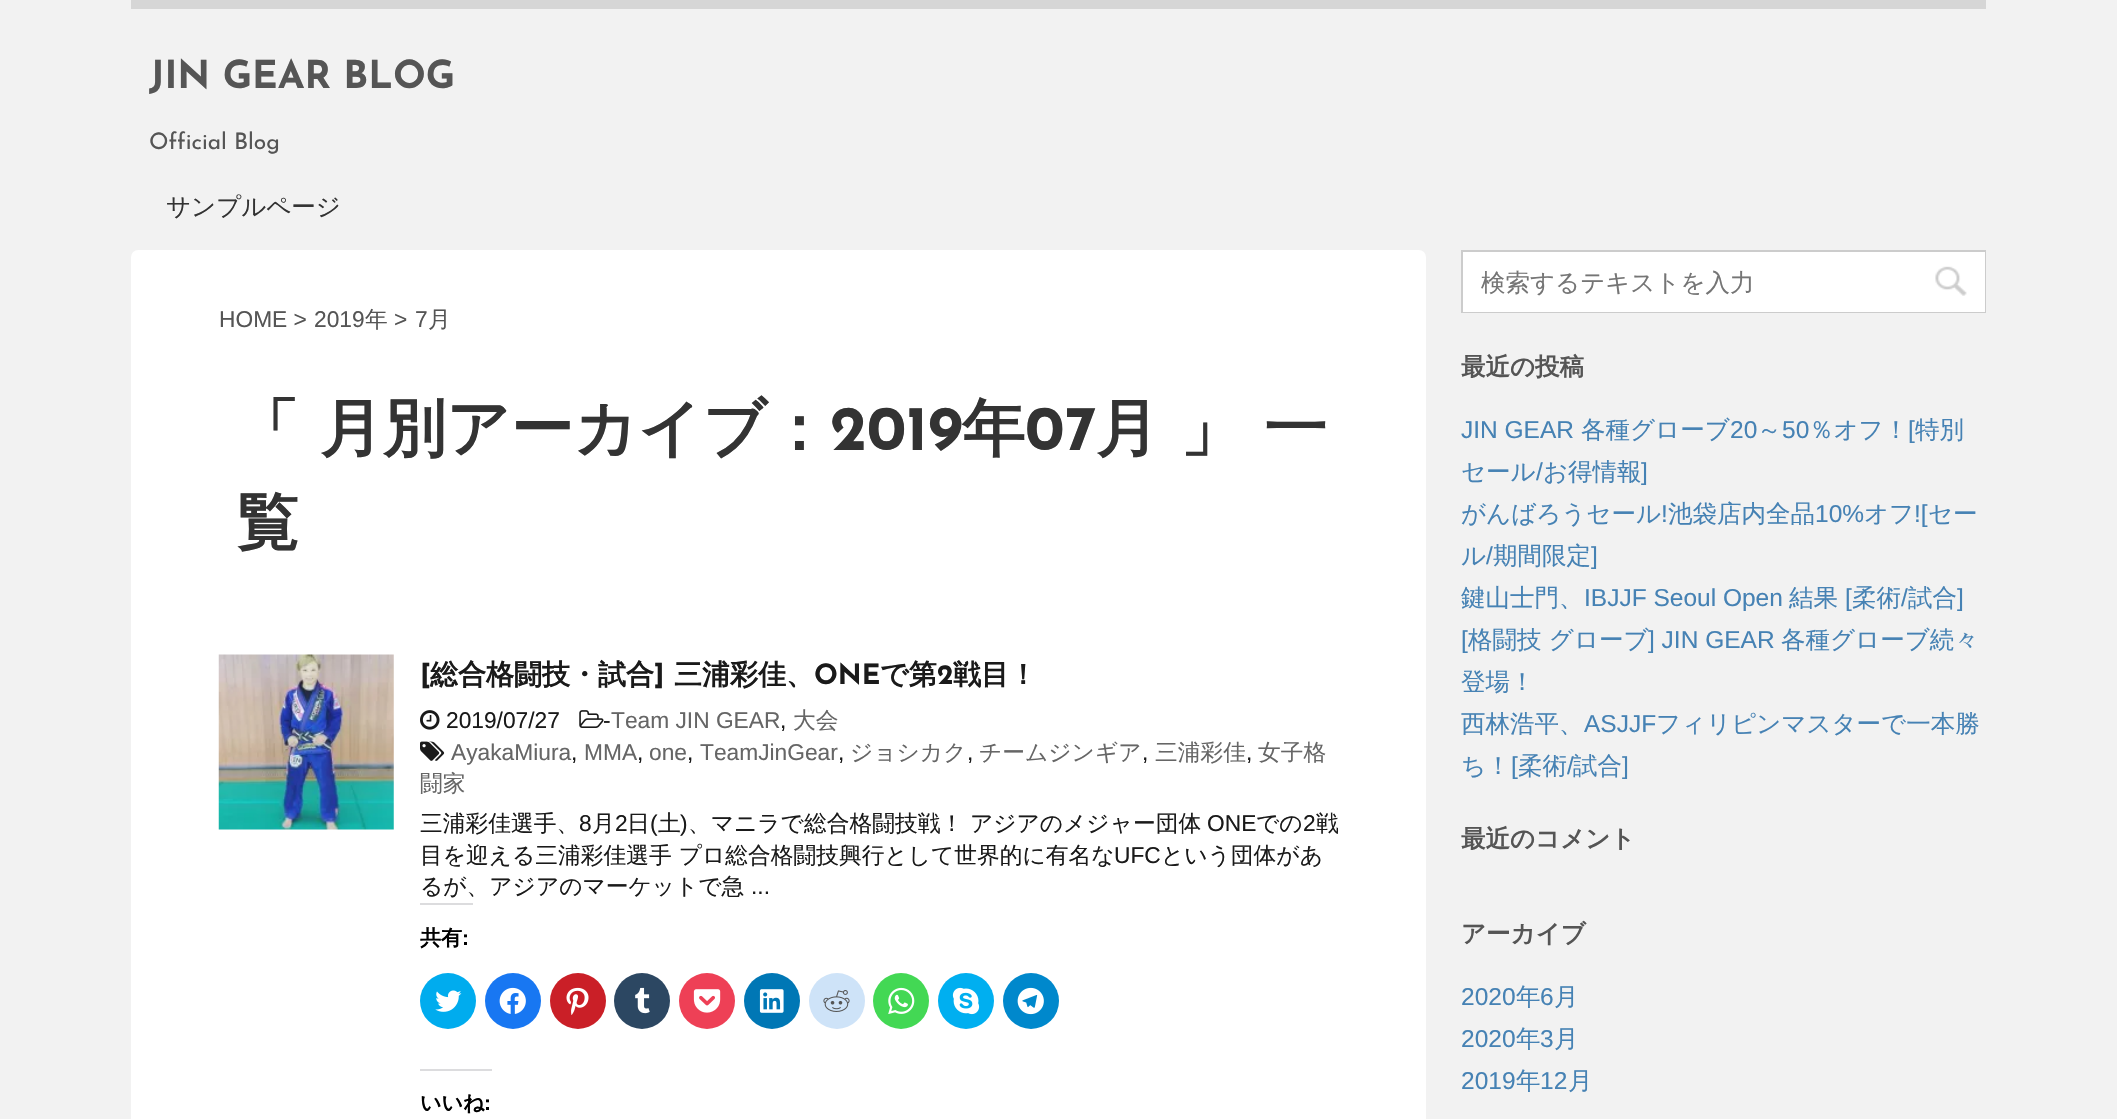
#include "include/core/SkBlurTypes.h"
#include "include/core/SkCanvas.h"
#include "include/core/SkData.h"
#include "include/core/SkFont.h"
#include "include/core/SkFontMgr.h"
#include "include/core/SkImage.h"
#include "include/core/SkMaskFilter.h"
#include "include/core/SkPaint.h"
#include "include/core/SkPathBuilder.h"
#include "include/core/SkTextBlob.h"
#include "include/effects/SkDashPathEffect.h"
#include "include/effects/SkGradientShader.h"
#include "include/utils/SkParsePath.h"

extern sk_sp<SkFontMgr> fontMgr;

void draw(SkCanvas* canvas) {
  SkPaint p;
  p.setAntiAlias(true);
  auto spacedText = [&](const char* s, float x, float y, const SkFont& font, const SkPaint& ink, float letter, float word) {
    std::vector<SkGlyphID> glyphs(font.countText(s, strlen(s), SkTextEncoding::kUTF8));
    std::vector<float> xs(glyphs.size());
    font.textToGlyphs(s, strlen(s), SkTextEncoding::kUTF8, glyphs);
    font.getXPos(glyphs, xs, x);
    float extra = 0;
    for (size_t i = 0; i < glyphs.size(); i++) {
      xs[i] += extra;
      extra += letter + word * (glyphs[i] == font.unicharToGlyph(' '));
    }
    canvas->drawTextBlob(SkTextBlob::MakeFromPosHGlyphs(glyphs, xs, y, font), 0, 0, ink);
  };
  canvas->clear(SkColorSetRGB(242, 242, 242));
  p.setColor(SkColorSetRGB(214, 214, 214));
  canvas->drawRect(SkRect::MakeLTRB(131, 0, 1986, 9), p);
  p.setColor(SK_ColorWHITE);
  canvas->drawRoundRect(SkRect::MakeLTRB(131, 250, 1426, 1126), 7, 7, p);
  canvas->drawImageRect(SkImages::DeferredFromEncodedData(SkData::MakeFromFileName("images/1.png")), SkRect::MakeLTRB(218, 654, 394, 830), SkSamplingOptions());
  canvas->drawImageRect(SkImages::DeferredFromEncodedData(SkData::MakeFromFileName("images/2.png")), SkRect::MakeLTRB(579, 710, 604, 728), SkSamplingOptions());
  canvas->drawImageRect(SkImages::DeferredFromEncodedData(SkData::MakeFromFileName("images/3.png")), SkRect::MakeLTRB(420, 741, 445, 761), SkSamplingOptions());
  canvas->drawImageRect(SkImages::DeferredFromEncodedData(SkData::MakeFromFileName("images/4.png")), SkRect::MakeLTRB(420, 710, 440, 730), SkSamplingOptions());
  p.setColor(SkColorSetRGB(220, 220, 222));
  canvas->drawRect(SkRect::MakeLTRB(420, 903, 473, 905), p);
  p.setColor(SkColorSetRGB(0, 172, 238));
  canvas->drawCircle(448, 1001, 28, p);
  canvas->drawImageRect(SkImages::DeferredFromEncodedData(SkData::MakeFromFileName("images/5.png")), SkRect::MakeLTRB(435, 990, 462, 1012), SkSamplingOptions());
  p.setColor(SkColorSetRGB(24, 119, 242));
  canvas->drawCircle(513, 1001, 28, p);
  canvas->drawImageRect(SkImages::DeferredFromEncodedData(SkData::MakeFromFileName("images/6.png")), SkRect::MakeLTRB(499, 987, 526, 1014), SkSamplingOptions());
  p.setColor(SkColorSetRGB(202, 31, 39));
  canvas->drawCircle(578, 1001, 28, p);
  canvas->drawImageRect(SkImages::DeferredFromEncodedData(SkData::MakeFromFileName("images/7.png")), SkRect::MakeLTRB(566, 987, 589, 1015), SkSamplingOptions());
  p.setColor(SkColorSetRGB(44, 71, 98));
  canvas->drawCircle(642, 1001, 28, p);
  canvas->drawImageRect(SkImages::DeferredFromEncodedData(SkData::MakeFromFileName("images/8.png")), SkRect::MakeLTRB(635, 987, 650, 1014), SkSamplingOptions());
  p.setColor(SkColorSetRGB(238, 64, 86));
  canvas->drawCircle(707, 1001, 28, p);
  canvas->drawImageRect(SkImages::DeferredFromEncodedData(SkData::MakeFromFileName("images/9.png")), SkRect::MakeLTRB(693, 989, 721, 1013), SkSamplingOptions());
  p.setColor(SkColorSetRGB(0, 119, 181));
  canvas->drawCircle(772, 1001, 28, p);
  canvas->drawImageRect(SkImages::DeferredFromEncodedData(SkData::MakeFromFileName("images/10.png")), SkRect::MakeLTRB(759, 989, 784, 1013), SkSamplingOptions());
  p.setColor(SkColorSetRGB(206, 227, 248));
  canvas->drawCircle(837, 1001, 28, p);
  canvas->drawImageRect(SkImages::DeferredFromEncodedData(SkData::MakeFromFileName("images/11.png")), SkRect::MakeLTRB(823, 990, 850, 1012), SkSamplingOptions());
  p.setColor(SkColorSetRGB(67, 216, 84));
  canvas->drawCircle(901, 1001, 28, p);
  canvas->drawImageRect(SkImages::DeferredFromEncodedData(SkData::MakeFromFileName("images/12.png")), SkRect::MakeLTRB(888, 987, 915, 1014), SkSamplingOptions());
  p.setColor(SkColorSetRGB(0, 175, 240));
  canvas->drawCircle(966, 1001, 28, p);
  canvas->drawImageRect(SkImages::DeferredFromEncodedData(SkData::MakeFromFileName("images/13.png")), SkRect::MakeLTRB(952, 987, 980, 1015), SkSamplingOptions());
  p.setColor(SkColorSetRGB(0, 136, 204));
  canvas->drawCircle(1031, 1001, 28, p);
  canvas->drawImageRect(SkImages::DeferredFromEncodedData(SkData::MakeFromFileName("images/14.png")), SkRect::MakeLTRB(1017, 987, 1044, 1015), SkSamplingOptions());
  p.setColor(SkColorSetRGB(220, 220, 222));
  canvas->drawRect(SkRect::MakeLTRB(420, 1069, 492, 1071), p);
  p.setStyle(SkPaint::kStroke_Style);
  p.setStrokeWidth(2);
  p.setColor(SkColorSetRGB(204, 204, 204));
  canvas->drawRect(SkRect::MakeLTRB(1462, 251, 1985, 312), p);
  p.setStyle(SkPaint::kFill_Style);
  p.setColor(SK_ColorWHITE);
  canvas->drawRect(SkRect::MakeLTRB(1463, 252, 1985, 312), p);
  canvas->drawImageRect(SkImages::DeferredFromEncodedData(SkData::MakeFromFileName("images/15.png")), SkRect::MakeLTRB(1935, 266, 1967, 296), SkSamplingOptions());
  SkFont font1(fontMgr->matchFamilyStyle("Josefin Sans", SkFontStyle::Bold()), 38.5f);
  font1.setSubpixel(true);
  p.setColor(SkColorSetRGB(85, 85, 85));
  canvas->drawString("JIN GEAR BLOG", 149, 88, font1, p);
  SkFont font2(fontMgr->matchFamilyStyle("Josefin Sans", SkFontStyle::Normal()), 22.75f);
  font2.setSubpixel(true);
  canvas->drawString("Official Blog", 149, 149, font2, p);
  SkFont font3(fontMgr->matchFamilyStyle("WenQuanYi Zen Hei", SkFontStyle(500, SkFontStyle::kNormal_Width, SkFontStyle::kUpright_Slant)), 24.5f);
  font3.setSubpixel(true);
  p.setColor(SkColorSetRGB(51, 51, 51));
  canvas->drawString("サンプルページ", 166, 215, font3, p);
  SkFont font4(fontMgr->matchFamilyStyle("Liberation Sans", SkFontStyle::Normal()), 22.75f);
  font4.setSubpixel(true);
  p.setColor(SkColorSetRGB(85, 85, 85));
  canvas->drawString("HOME >", 219, 327, font4, p);
  canvas->drawString("2019", 314, 327, font4, p);
  SkFont font5(fontMgr->matchFamilyStyle("WenQuanYi Zen Hei", SkFontStyle(500, SkFontStyle::kNormal_Width, SkFontStyle::kUpright_Slant)), 22.75f);
  font5.setSubpixel(true);
  canvas->drawString("年", 365, 327, font5, p);
  canvas->drawString(">", 394, 327, font4, p);
  canvas->drawString("7", 415, 327, font4, p);
  canvas->drawString("月", 428, 327, font5, p);
  SkFont font6(fontMgr->matchFamilyStyle("WenQuanYi Zen Hei", SkFontStyle::Bold()), 63);
  font6.setSubpixel(true);
  p.setColor(SkColorSetRGB(51, 51, 51));
  canvas->drawString("「", 236, 450, font6, p);
  canvas->drawString("月別アーカイブ：", 320, 450, font6, p);
  SkFont font7(fontMgr->matchFamilyStyle("Josefin Sans", SkFontStyle::Bold()), 63);
  font7.setSubpixel(true);
  canvas->drawString("2019", 830, 450, font7, p);
  canvas->drawString("年", 962, 450, font6, p);
  canvas->drawString("07", 1025, 450, font7, p);
  canvas->drawString("月", 1096, 450, font6, p);
  spacedText("」 一", 1180, 450, font6, p, 0, 2);
  canvas->drawString("覧", 236, 544, font6, p);
  SkFont font8(fontMgr->matchFamilyStyle("Josefin Sans", SkFontStyle::Bold()), 28);
  font8.setSubpixel(true);
  p.setColor(SkColorSetRGB(26, 26, 26));
  canvas->drawString("[", 420, 684, font8, p);
  SkFont font9(fontMgr->matchFamilyStyle("WenQuanYi Zen Hei", SkFontStyle::Bold()), 28);
  font9.setSubpixel(true);
  canvas->drawString("総合格闘技・試合", 430, 684, font9, p);
  canvas->drawString("]", 654, 684, font8, p);
  canvas->drawString("三浦彩佳、", 674, 684, font9, p);
  canvas->drawString("ONE", 814, 684, font8, p);
  canvas->drawString("で第", 880, 684, font9, p);
  canvas->drawString("2", 937, 684, font8, p);
  canvas->drawString("戦目！", 953, 684, font9, p);
  canvas->drawString("-", 603, 728, font4, p);
  p.setColor(SkColorSetRGB(102, 102, 102));
  canvas->drawString("Team JIN GEAR", 611, 728, font4, p);
  canvas->drawString("大会", 793, 728, font5, p);
  p.setColor(SkColorSetRGB(26, 26, 26));
  canvas->drawString(",", 780, 728, font4, p);
  p.setColor(SkColorSetRGB(102, 102, 102));
  canvas->drawString("AyakaMiura", 451, 760, font4, p);
  p.setColor(SkColorSetRGB(26, 26, 26));
  canvas->drawString(",", 571, 760, font4, p);
  p.setColor(SkColorSetRGB(102, 102, 102));
  canvas->drawString("MMA", 584, 760, font4, p);
  p.setColor(SkColorSetRGB(26, 26, 26));
  canvas->drawString(",", 637, 760, font4, p);
  p.setColor(SkColorSetRGB(102, 102, 102));
  canvas->drawString("one", 649, 760, font4, p);
  p.setColor(SkColorSetRGB(26, 26, 26));
  canvas->drawString(",", 687, 760, font4, p);
  p.setColor(SkColorSetRGB(102, 102, 102));
  canvas->drawString("TeamJinGear", 700, 760, font4, p);
  p.setColor(SkColorSetRGB(26, 26, 26));
  canvas->drawString(",", 838, 760, font4, p);
  p.setColor(SkColorSetRGB(102, 102, 102));
  canvas->drawString("ジョシカク", 850, 760, font5, p);
  p.setColor(SkColorSetRGB(26, 26, 26));
  canvas->drawString(",", 967, 760, font4, p);
  p.setColor(SkColorSetRGB(102, 102, 102));
  canvas->drawString("チームジンギア", 979, 760, font5, p);
  p.setColor(SkColorSetRGB(26, 26, 26));
  canvas->drawString(",", 1142, 760, font4, p);
  p.setColor(SkColorSetRGB(102, 102, 102));
  canvas->drawString("三浦彩佳", 1155, 760, font5, p);
  p.setColor(SkColorSetRGB(26, 26, 26));
  canvas->drawString(",", 1246, 760, font4, p);
  p.setColor(SkColorSetRGB(102, 102, 102));
  canvas->drawString("女子格", 1258, 760, font5, p);
  canvas->drawString("闘家", 420, 791, font5, p);
  p.setColor(SkColorSetRGB(26, 26, 26));
  canvas->drawString("2019/07/27", 446, 728, font4, p);
  canvas->drawString("三浦彩佳選手、", 420, 831, font5, p);
  canvas->drawString("8", 579, 831, font4, p);
  canvas->drawString("月", 592, 831, font5, p);
  canvas->drawString("2", 615, 831, font4, p);
  canvas->drawString("日", 627, 831, font5, p);
  canvas->drawString("(", 650, 831, font4, p);
  canvas->drawString("土", 658, 831, font5, p);
  canvas->drawString(")", 680, 831, font4, p);
  canvas->drawString("、マニラで総合格闘技戦！ アジアのメジャー団体", 688, 831, font5, p);
  canvas->drawString("ONE", 1207, 831, font4, p);
  canvas->drawString("での", 1256, 831, font5, p);
  canvas->drawString("2", 1303, 831, font4, p);
  canvas->drawString("戦", 1316, 831, font5, p);
  canvas->drawString("目を迎える三浦彩佳選手 プロ総合格闘技興行として世界的に有名な", 420, 863, font5, p);
  canvas->drawString("UFC", 1114, 863, font4, p);
  canvas->drawString("という団体があ", 1161, 863, font5, p);
  canvas->drawString("るが、アジアのマーケットで急", 420, 894, font5, p);
  canvas->drawString("...", 751, 894, font4, p);
  SkFont font10(fontMgr->matchFamilyStyle("WenQuanYi Zen Hei", SkFontStyle::Bold()), 21);
  font10.setSubpixel(true);
  p.setColor(SK_ColorBLACK);
  canvas->drawString("共有", 420, 945, font10, p);
  SkFont font11(fontMgr->matchFamilyStyle("Liberation Sans", SkFontStyle::Bold()), 21);
  font11.setSubpixel(true);
  canvas->drawString(":", 462, 945, font11, p);
  canvas->drawString("いいね", 420, 1110, font10, p);
  canvas->drawString(":", 484, 1110, font11, p);
  p.setColor(SkColorSetRGB(117, 117, 117));
  canvas->drawString("検索するテキストを入力", 1481, 291, font3, p);
  SkFont font12(fontMgr->matchFamilyStyle("WenQuanYi Zen Hei", SkFontStyle::Bold()), 24.5f);
  font12.setSubpixel(true);
  p.setColor(SkColorSetRGB(85, 85, 85));
  canvas->drawString("最近の投稿", 1461, 375, font12, p);
  SkFont font13(fontMgr->matchFamilyStyle("Liberation Sans", SkFontStyle::Normal()), 24.5f);
  font13.setSubpixel(true);
  p.setColor(SkColorSetRGB(70, 130, 180));
  canvas->drawString("JIN GEAR", 1461, 438, font13, p);
  canvas->drawString("各種グローブ", 1581, 438, font3, p);
  canvas->drawString("20", 1730, 438, font13, p);
  canvas->drawString("～", 1757, 438, font3, p);
  canvas->drawString("50", 1782, 438, font13, p);
  canvas->drawString("％オフ！", 1809, 438, font3, p);
  canvas->drawString("[", 1908, 438, font13, p);
  canvas->drawString("特別", 1915, 438, font3, p);
  canvas->drawString("セール", 1461, 480, font3, p);
  canvas->drawString("/", 1536, 480, font13, p);
  canvas->drawString("お得情報", 1543, 480, font3, p);
  canvas->drawString("]", 1641, 480, font13, p);
  canvas->drawString("がんばろうセール", 1461, 522, font3, p);
  canvas->drawString("!", 1661, 522, font13, p);
  canvas->drawString("池袋店内全品", 1668, 522, font3, p);
  canvas->drawString("10%", 1815, 522, font13, p);
  canvas->drawString("オフ", 1864, 522, font3, p);
  canvas->drawString("![", 1914, 522, font13, p);
  canvas->drawString("セー", 1928, 522, font3, p);
  canvas->drawString("ル", 1461, 564, font3, p);
  canvas->drawString("/", 1486, 564, font13, p);
  canvas->drawString("期間限定", 1493, 564, font3, p);
  canvas->drawString("]", 1591, 564, font13, p);
  canvas->drawString("鍵山士門、", 1461, 606, font3, p);
  canvas->drawString("IBJJF Seoul Open", 1584, 606, font13, p);
  canvas->drawString("結果", 1789, 606, font3, p);
  canvas->drawString("[", 1845, 606, font13, p);
  canvas->drawString("柔術", 1852, 606, font3, p);
  canvas->drawString("/", 1901, 606, font13, p);
  canvas->drawString("試合", 1908, 606, font3, p);
  canvas->drawString("]", 1957, 606, font13, p);
  canvas->drawString("[", 1461, 648, font13, p);
  canvas->drawString("格闘技 グローブ", 1468, 648, font3, p);
  canvas->drawString("] JIN GEAR", 1648, 648, font13, p);
  canvas->drawString("各種グローブ続々", 1781, 648, font3, p);
  canvas->drawString("登場！", 1461, 690, font3, p);
  canvas->drawString("西林浩平、", 1461, 732, font3, p);
  canvas->drawString("ASJJF", 1584, 732, font13, p);
  canvas->drawString("フィリピンマスターで一本勝", 1656, 732, font3, p);
  canvas->drawString("ち！", 1461, 774, font3, p);
  canvas->drawString("[", 1511, 774, font13, p);
  canvas->drawString("柔術", 1518, 774, font3, p);
  canvas->drawString("/", 1567, 774, font13, p);
  canvas->drawString("試合", 1573, 774, font3, p);
  canvas->drawString("]", 1622, 774, font13, p);
  p.setColor(SkColorSetRGB(85, 85, 85));
  canvas->drawString("最近のコメント", 1461, 847, font12, p);
  canvas->drawString("アーカイブ", 1461, 942, font12, p);
  p.setColor(SkColorSetRGB(70, 130, 180));
  canvas->drawString("2020", 1461, 1005, font13, p);
  canvas->drawString("年", 1516, 1005, font3, p);
  canvas->drawString("6", 1540, 1005, font13, p);
  canvas->drawString("月", 1554, 1005, font3, p);
  canvas->drawString("2020", 1461, 1047, font13, p);
  canvas->drawString("年", 1516, 1047, font3, p);
  canvas->drawString("3", 1540, 1047, font13, p);
  canvas->drawString("月", 1554, 1047, font3, p);
  canvas->drawString("2019", 1461, 1089, font13, p);
  canvas->drawString("年", 1516, 1089, font3, p);
  canvas->drawString("12", 1540, 1089, font13, p);
  canvas->drawString("月", 1568, 1089, font3, p);
}
